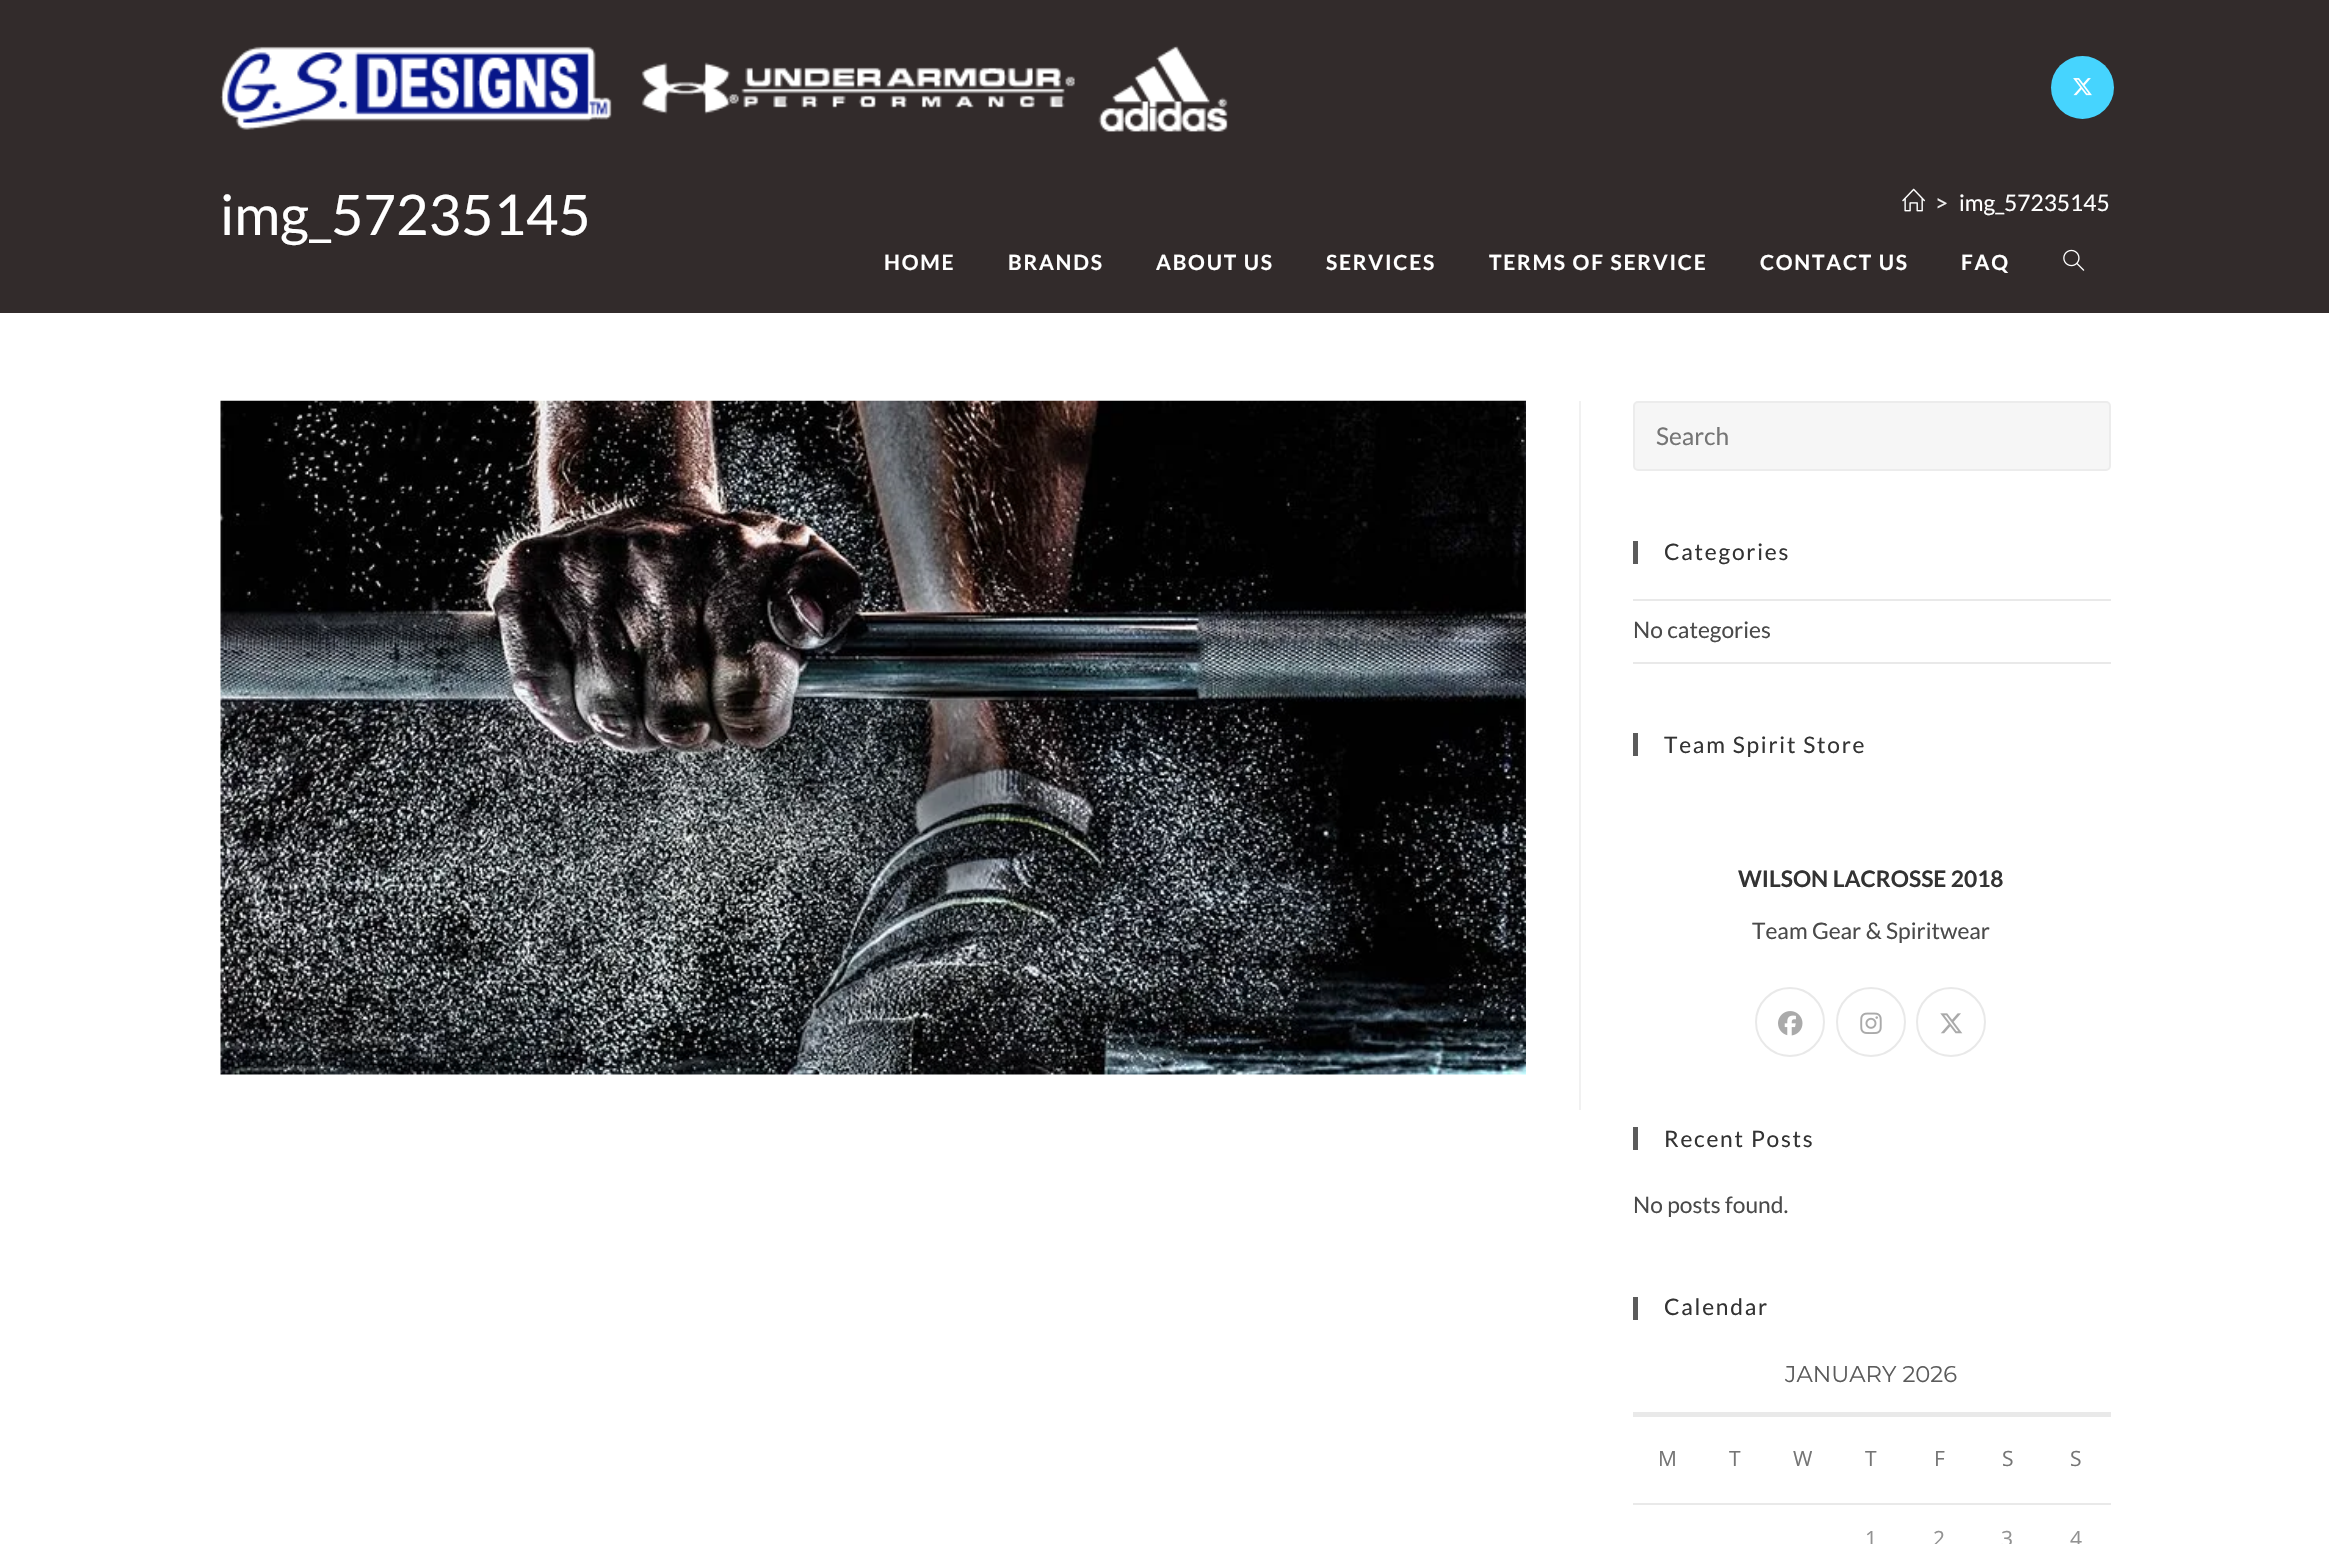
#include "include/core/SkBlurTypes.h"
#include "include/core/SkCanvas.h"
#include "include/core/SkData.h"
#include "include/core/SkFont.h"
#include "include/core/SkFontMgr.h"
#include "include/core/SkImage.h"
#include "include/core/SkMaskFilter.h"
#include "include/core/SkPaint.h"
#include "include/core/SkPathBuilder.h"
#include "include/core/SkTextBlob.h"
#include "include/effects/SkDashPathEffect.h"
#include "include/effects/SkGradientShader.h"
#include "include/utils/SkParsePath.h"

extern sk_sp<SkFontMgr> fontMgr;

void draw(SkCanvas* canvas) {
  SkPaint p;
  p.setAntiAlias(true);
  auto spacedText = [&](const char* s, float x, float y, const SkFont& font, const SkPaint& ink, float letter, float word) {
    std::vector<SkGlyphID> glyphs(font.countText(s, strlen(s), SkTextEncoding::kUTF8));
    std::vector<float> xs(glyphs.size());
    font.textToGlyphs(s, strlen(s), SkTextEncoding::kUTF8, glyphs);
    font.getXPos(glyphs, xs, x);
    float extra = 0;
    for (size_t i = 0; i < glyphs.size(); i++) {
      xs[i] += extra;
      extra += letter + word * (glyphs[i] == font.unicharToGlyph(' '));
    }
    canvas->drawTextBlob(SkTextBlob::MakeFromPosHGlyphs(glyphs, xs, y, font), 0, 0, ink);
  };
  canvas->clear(SK_ColorWHITE);
  p.setColor(SkColorSetRGB(50, 43, 43));
  canvas->drawRect(SkRect::MakeLTRB(0, 0, 2329, 313), p);
  canvas->drawImageRect(SkImages::DeferredFromEncodedData(SkData::MakeFromFileName("images/1.png")), SkRect::MakeLTRB(1902, 188, 1925, 212), SkSamplingOptions());
  p.setColor(SkColorSetRGB(241, 241, 241));
  canvas->drawRect(SkRect::MakeLTRB(1579, 401, 1581, 1110), p);
  canvas->drawImageRect(SkImages::DeferredFromEncodedData(SkData::MakeFromFileName("images/2.png")), SkRect::MakeLTRB(220, 400, 1526, 1075), SkSamplingOptions());
  p.setColor(SkColorSetRGB(246, 246, 246));
  canvas->drawRoundRect(SkRect::MakeLTRB(1634, 402, 2110, 470), 4, 4, p);
  p.setStyle(SkPaint::kStroke_Style);
  p.setStrokeWidth(2);
  p.setColor(SkColorSetRGB(236, 236, 236));
  canvas->drawRoundRect(SkRect::MakeLTRB(1634, 402, 2110, 470), 4, 4, p);
  p.setStyle(SkPaint::kFill_Style);
  p.setColor(SkColorSetRGB(91, 91, 91));
  canvas->drawRect(SkRect::MakeLTRB(1633, 541, 1638, 564), p);
  p.setColor(SkColorSetRGB(233, 233, 233));
  canvas->drawRect(SkRect::MakeLTRB(1633, 599, 2111, 601), p);
  canvas->drawRect(SkRect::MakeLTRB(1633, 662, 2111, 664), p);
  p.setColor(SkColorSetRGB(91, 91, 91));
  canvas->drawRect(SkRect::MakeLTRB(1633, 733, 1638, 756), p);
  p.setStyle(SkPaint::kStroke_Style);
  p.setColor(SkColorSetRGB(233, 233, 233));
  canvas->drawCircle(1790, 1022, 34, p);
  canvas->drawImageRect(SkImages::DeferredFromEncodedData(SkData::MakeFromFileName("images/3.png")), SkRect::MakeLTRB(1778, 1011, 1803, 1036), SkSamplingOptions());
  canvas->drawCircle(1871, 1022, 34, p);
  canvas->drawImageRect(SkImages::DeferredFromEncodedData(SkData::MakeFromFileName("images/4.png")), SkRect::MakeLTRB(1860, 1012, 1882, 1034), SkSamplingOptions());
  canvas->drawCircle(1951, 1022, 34, p);
  canvas->drawImageRect(SkImages::DeferredFromEncodedData(SkData::MakeFromFileName("images/5.png")), SkRect::MakeLTRB(1940, 1013, 1963, 1034), SkSamplingOptions());
  p.setStyle(SkPaint::kFill_Style);
  p.setColor(SkColorSetRGB(91, 91, 91));
  canvas->drawRect(SkRect::MakeLTRB(1633, 1127, 1638, 1150), p);
  canvas->drawRect(SkRect::MakeLTRB(1633, 1297, 1638, 1320), p);
  p.setColor(SkColorSetRGB(233, 233, 233));
  canvas->drawRect(SkRect::MakeLTRB(1633, 1412, 2111, 1417), p);
  canvas->drawRect(SkRect::MakeLTRB(1633, 1503, 2111, 1505), p);
  canvas->drawImageRect(SkImages::DeferredFromEncodedData(SkData::MakeFromFileName("images/6.png")), SkRect::MakeLTRB(220, 45, 1228, 132), SkSamplingOptions());
  p.setColor(SkColorSetRGB(70, 212, 254));
  canvas->drawCircle(2082.5f, 87.5f, 31.5f, p);
  canvas->drawImageRect(SkImages::DeferredFromEncodedData(SkData::MakeFromFileName("images/7.png")), SkRect::MakeLTRB(2073, 78, 2092, 96), SkSamplingOptions());
  canvas->drawImageRect(SkImages::DeferredFromEncodedData(SkData::MakeFromFileName("images/8.png")), SkRect::MakeLTRB(2063, 249, 2085, 271), SkSamplingOptions());
  SkFont font1(fontMgr->matchFamilyStyle("Lato", SkFontStyle::Normal()), 56);
  font1.setSubpixel(true);
  p.setColor(SK_ColorWHITE);
  canvas->drawString("img_57235145", 220, 235, font1, p);
  SkFont font2(fontMgr->matchFamilyStyle("Lato", SkFontStyle::Normal()), 22.75f);
  font2.setSubpixel(true);
  p.setColor(SkColorSetRGB(239, 239, 239));
  canvas->drawString(">", 1935, 211, font2, p);
  p.setColor(SK_ColorWHITE);
  canvas->drawString("img_57235145", 1959, 211, font2, p);
  SkFont font3(fontMgr->matchFamilyStyle("Lato", SkFontStyle::Normal()), 24.5f);
  font3.setSubpixel(true);
  p.setColor(SkColorSetRGB(117, 117, 117));
  canvas->drawString("Search", 1656, 445, font3, p);
  p.setColor(SkColorSetRGB(51, 51, 51));
  spacedText("Categories", 1664, 560, font2, p, 1.75f, 0);
  p.setColor(SkColorSetRGB(74, 74, 74));
  canvas->drawString("No categories", 1633, 638, font2, p);
  p.setColor(SkColorSetRGB(51, 51, 51));
  spacedText("Team Spirit Store", 1664, 753, font2, p, 1.75f, 0);
  SkFont font4(fontMgr->matchFamilyStyle("Lato", SkFontStyle::Bold()), 22.75f);
  font4.setSubpixel(true);
  canvas->drawString("WILSON LACROSSE 2018", 1738, 887, font4, p);
  p.setColor(SkColorSetRGB(74, 74, 74));
  canvas->drawString("Team Gear & Spiritwear", 1752, 939, font2, p);
  p.setColor(SkColorSetRGB(51, 51, 51));
  spacedText("Recent Posts", 1664, 1147, font2, p, 1.75f, 0);
  p.setColor(SkColorSetRGB(74, 74, 74));
  canvas->drawString("No posts found.", 1633, 1213, font2, p);
  p.setColor(SkColorSetRGB(51, 51, 51));
  spacedText("Calendar", 1664, 1315, font2, p, 1.75f, 0);
  SkFont font5(fontMgr->matchFamilyStyle("Montserrat", SkFontStyle::Normal()), 22.75f);
  font5.setSubpixel(true);
  p.setColor(SkColorSetRGB(91, 91, 91));
  canvas->drawString("JANUARY 2026", 1785, 1382, font5, p);
  SkFont font6(fontMgr->matchFamilyStyle("Open Sans", SkFontStyle::Normal()), 21);
  font6.setSubpixel(true);
  p.setColor(SkColorSetRGB(117, 117, 117));
  canvas->drawString("M", 1658, 1466, font6, p);
  canvas->drawString("T", 1729, 1466, font6, p);
  canvas->drawString("W", 1793, 1466, font6, p);
  canvas->drawString("T", 1865, 1466, font6, p);
  canvas->drawString("F", 1934, 1466, font6, p);
  canvas->drawString("S", 2002, 1466, font6, p);
  canvas->drawString("S", 2070, 1466, font6, p);
  p.setColor(SkColorSetRGB(146, 146, 146));
  canvas->drawString("1", 1865, 1546, font6, p);
  canvas->drawString("2", 1933, 1546, font6, p);
  canvas->drawString("3", 2001, 1546, font6, p);
  canvas->drawString("4", 2070, 1546, font6, p);
  SkFont font7(fontMgr->matchFamilyStyle("Lato", SkFontStyle::Bold()), 21);
  font7.setSubpixel(true);
  p.setColor(SK_ColorWHITE);
  spacedText("HOME", 884, 270, font7, p, 1.75f, 0);
  spacedText("BRANDS", 1008, 270, font7, p, 1.75f, 0);
  spacedText("ABOUT US", 1156, 270, font7, p, 1.75f, 0);
  spacedText("SERVICES", 1326, 270, font7, p, 1.75f, 0);
  spacedText("TERMS OF SERVICE", 1489, 270, font7, p, 1.75f, 0);
  spacedText("CONTACT US", 1760, 270, font7, p, 1.75f, 0);
  spacedText("FAQ", 1961, 270, font7, p, 1.75f, 0);
}
